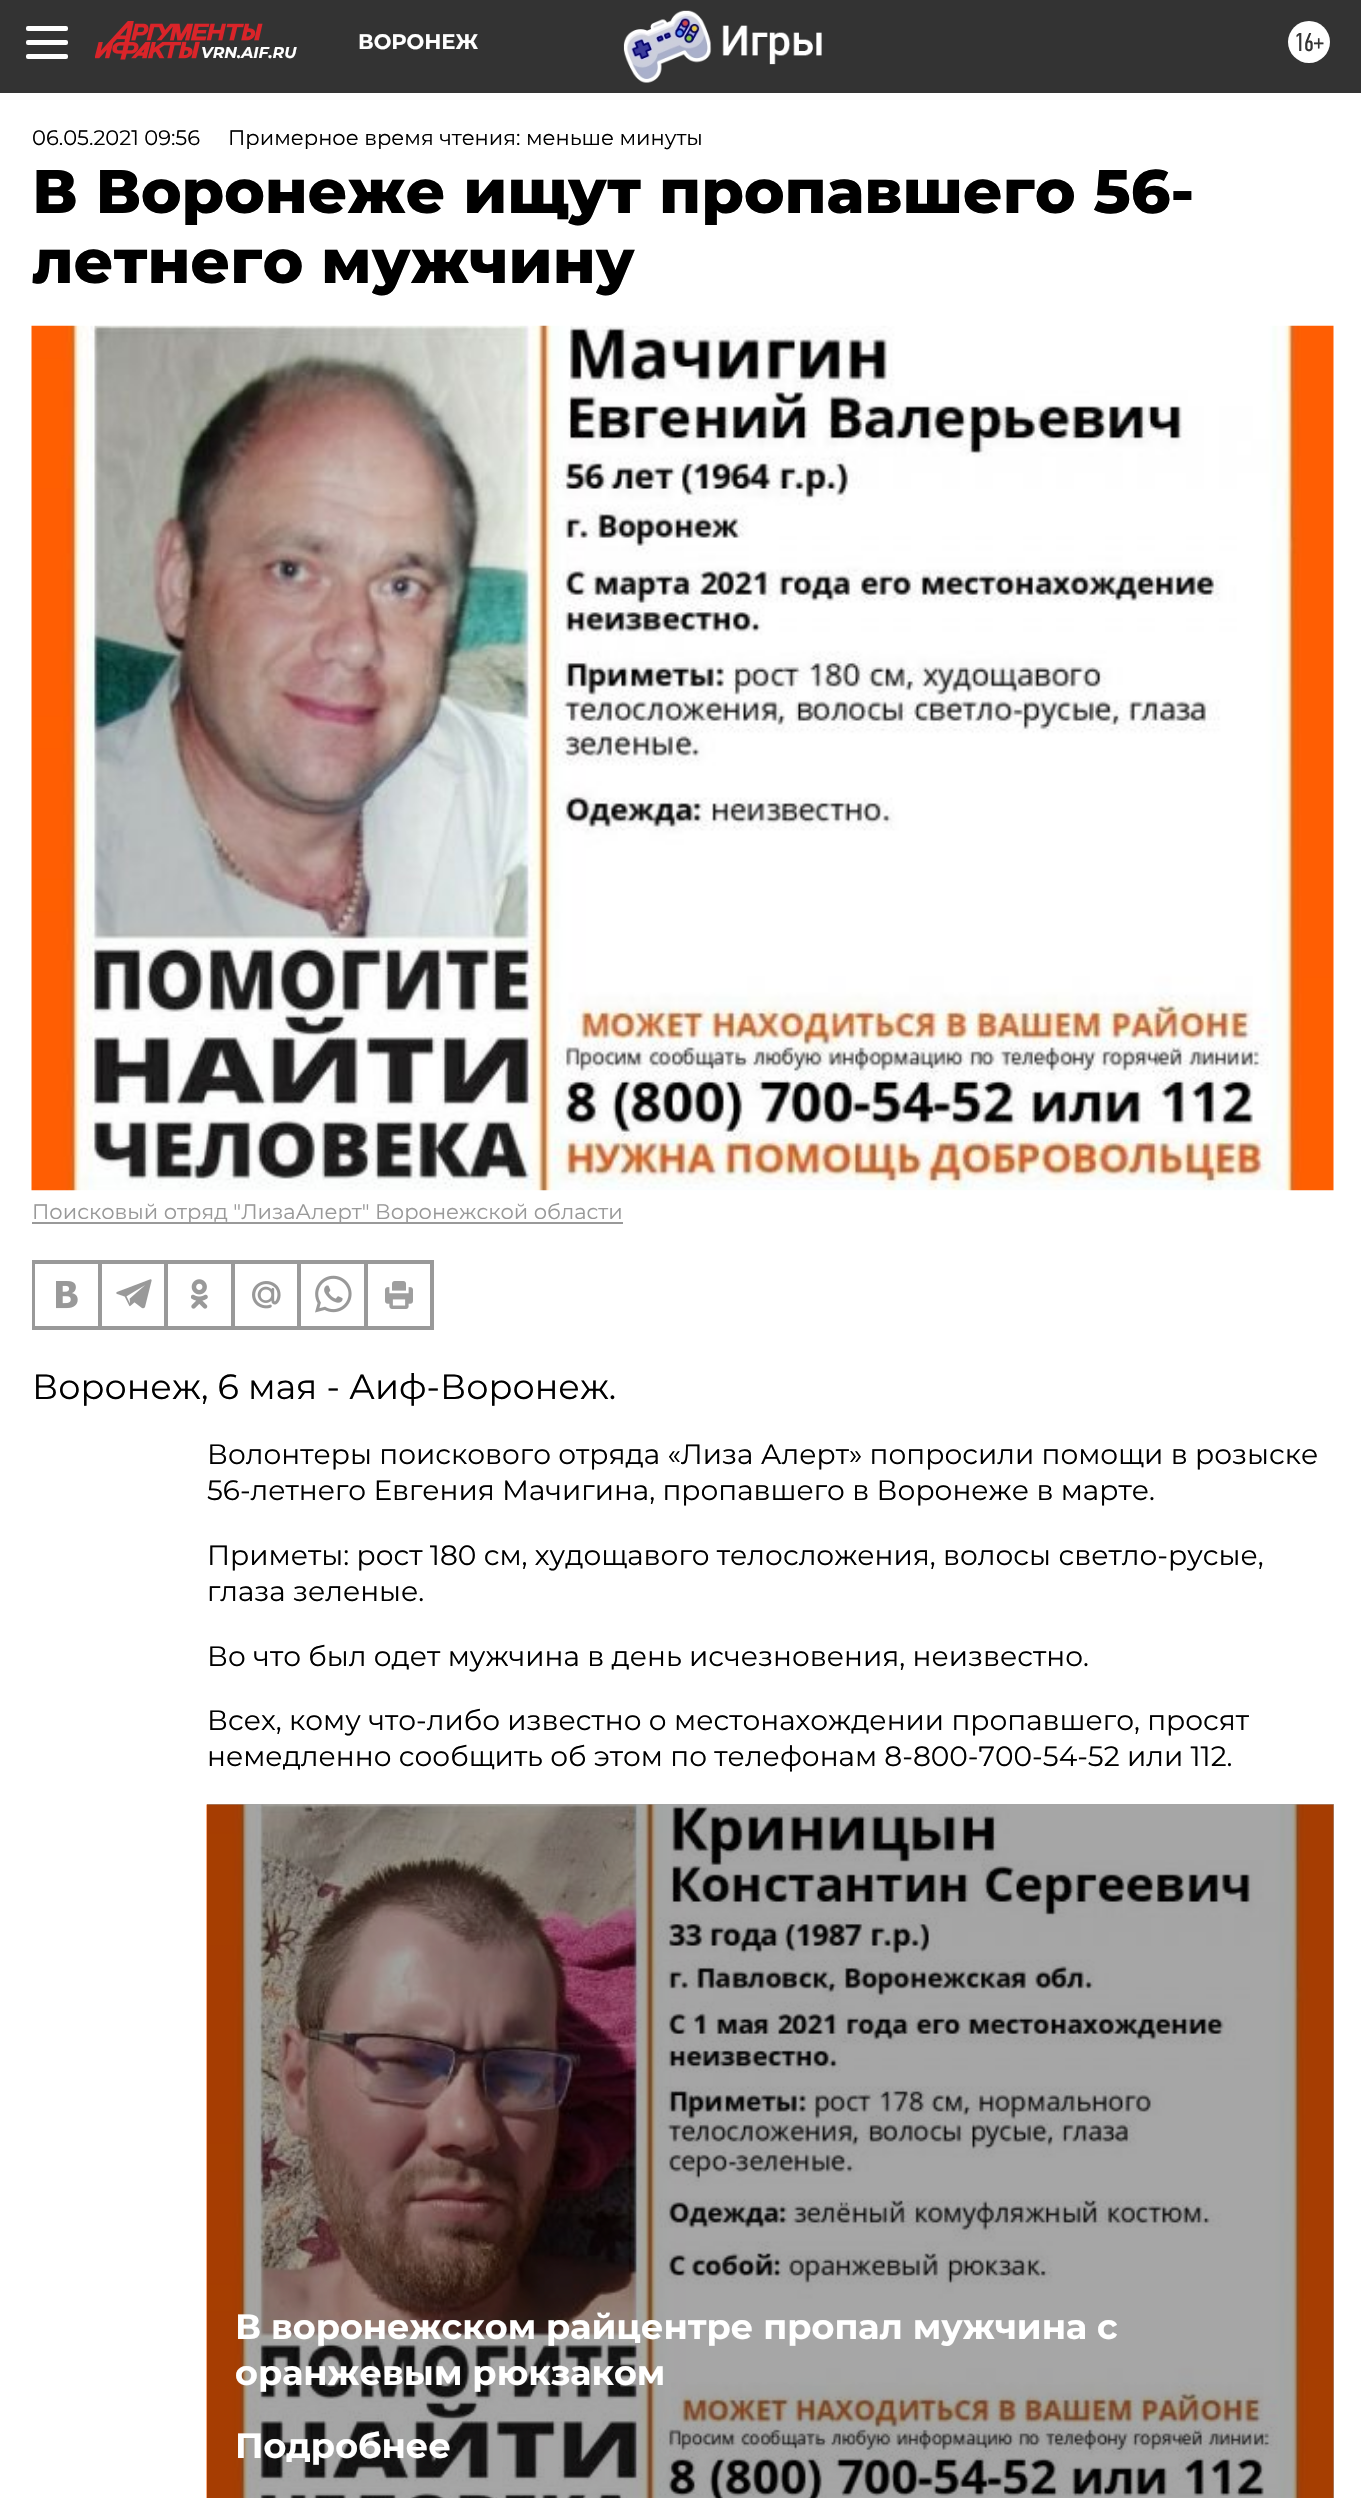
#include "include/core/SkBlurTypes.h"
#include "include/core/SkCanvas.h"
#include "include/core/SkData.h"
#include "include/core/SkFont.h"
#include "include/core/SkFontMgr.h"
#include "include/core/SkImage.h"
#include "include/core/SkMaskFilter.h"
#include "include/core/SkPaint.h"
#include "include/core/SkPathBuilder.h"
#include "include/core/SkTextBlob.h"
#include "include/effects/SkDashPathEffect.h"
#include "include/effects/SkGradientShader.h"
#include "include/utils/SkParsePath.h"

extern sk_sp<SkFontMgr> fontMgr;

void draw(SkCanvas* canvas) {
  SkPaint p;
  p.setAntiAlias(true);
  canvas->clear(SK_ColorWHITE);
  p.setColor(SkColorSetRGB(166, 166, 166));
  canvas->drawRect(SkRect::MakeLTRB(207, 1804, 1334, 2498), p);
  p.setColor(SkColorSetRGB(51, 51, 51));
  canvas->drawRect(SkRect::MakeLTRB(0, 0, 1361, 93), p);
  p.setColor(SK_ColorWHITE);
  canvas->drawRoundRect(SkRect::MakeLTRB(26, 26, 68, 31), 2, 2, p);
  canvas->drawRoundRect(SkRect::MakeLTRB(26, 40, 68, 45), 2, 2, p);
  canvas->drawRoundRect(SkRect::MakeLTRB(26, 54, 68, 59), 2, 2, p);
  canvas->drawImageRect(SkImages::DeferredFromEncodedData(SkData::MakeFromFileName("images/1.png")), SkRect::MakeLTRB(623, 10, 822, 83), SkSamplingOptions());
  canvas->drawCircle(1309, 42, 21, p);
  canvas->drawImageRect(SkImages::DeferredFromEncodedData(SkData::MakeFromFileName("images/2.png")), SkRect::MakeLTRB(95, 21, 263, 60), SkSamplingOptions());
  canvas->drawImageRect(SkImages::DeferredFromEncodedData(SkData::MakeFromFileName("images/3.png")), SkRect::MakeLTRB(31, 325, 1334, 1191), SkSamplingOptions());
  p.setColor(SkColorSetRGB(153, 153, 153));
  canvas->drawRect(SkRect::MakeLTRB(32, 1222, 623, 1224), p);
  p.setStyle(SkPaint::kStroke_Style);
  p.setStrokeWidth(2);
  canvas->drawRect(SkRect::MakeLTRB(33, 1261, 433, 1329), p);
  canvas->drawRect(SkRect::MakeLTRB(34, 1263, 99, 1327), p);
  canvas->drawImageRect(SkImages::DeferredFromEncodedData(SkData::MakeFromFileName("images/4.png")), SkRect::MakeLTRB(56, 1281, 78, 1309), SkSamplingOptions());
  canvas->drawRect(SkRect::MakeLTRB(101, 1263, 165, 1327), p);
  canvas->drawImageRect(SkImages::DeferredFromEncodedData(SkData::MakeFromFileName("images/5.png")), SkRect::MakeLTRB(116, 1279, 152, 1309), SkSamplingOptions());
  canvas->drawRect(SkRect::MakeLTRB(167, 1263, 232, 1327), p);
  canvas->drawImageRect(SkImages::DeferredFromEncodedData(SkData::MakeFromFileName("images/6.png")), SkRect::MakeLTRB(191, 1279, 208, 1309), SkSamplingOptions());
  canvas->drawRect(SkRect::MakeLTRB(234, 1263, 298, 1327), p);
  canvas->drawImageRect(SkImages::DeferredFromEncodedData(SkData::MakeFromFileName("images/7.png")), SkRect::MakeLTRB(252, 1281, 281, 1309), SkSamplingOptions());
  canvas->drawRect(SkRect::MakeLTRB(300, 1263, 365, 1327), p);
  canvas->drawImageRect(SkImages::DeferredFromEncodedData(SkData::MakeFromFileName("images/8.png")), SkRect::MakeLTRB(315, 1275, 352, 1313), SkSamplingOptions());
  canvas->drawRect(SkRect::MakeLTRB(367, 1263, 431, 1327), p);
  canvas->drawImageRect(SkImages::DeferredFromEncodedData(SkData::MakeFromFileName("images/9.png")), SkRect::MakeLTRB(385, 1281, 413, 1309), SkSamplingOptions());
  canvas->drawImageRect(SkImages::DeferredFromEncodedData(SkData::MakeFromFileName("images/10.png")), SkRect::MakeLTRB(206, 1804, 1334, 2498), SkSamplingOptions());
  SkFont font1(fontMgr->matchFamilyStyle("Montserrat", SkFontStyle::Bold()), 21);
  font1.setSubpixel(true);
  p.setStyle(SkPaint::kFill_Style);
  p.setColor(SK_ColorWHITE);
  canvas->drawString("ВОРОНЕЖ", 358, 49, font1, p);
  SkFont font2(fontMgr->matchFamilyStyle("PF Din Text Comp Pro", SkFontStyle::Normal()), 26);
  font2.setSubpixel(true);
  p.setColor(SkColorSetRGB(51, 51, 51));
  canvas->drawString("16+", 1294, 51, font2, p);
  SkFont font3(fontMgr->matchFamilyStyle("Montserrat", SkFontStyle::BoldItalic()), 15.75f);
  font3.setSubpixel(true);
  p.setColor(SK_ColorWHITE);
  canvas->drawString("VRN.AIF.RU", 201, 58, font3, p);
  SkFont font4(fontMgr->matchFamilyStyle("Montserrat", SkFontStyle::Normal()), 21);
  font4.setSubpixel(true);
  p.setColor(SK_ColorBLACK);
  canvas->drawString("06.05.2021 09:56", 32, 145, font4, p);
  canvas->drawString("Примерное время чтения: меньше минуты", 228, 145, font4, p);
  SkFont font5(fontMgr->matchFamilyStyle("Montserrat", SkFontStyle(800, SkFontStyle::kNormal_Width, SkFontStyle::kUpright_Slant)), 61.25f);
  font5.setSubpixel(true);
  canvas->drawString("В Воронеже ищут пропавшего 56-", 32, 213, font5, p);
  canvas->drawString("летнего мужчину", 32, 283, font5, p);
  p.setColor(SkColorSetRGB(153, 153, 153));
  canvas->drawString("Поисковый отряд \"ЛизаАлерт\" Воронежской области", 32, 1219, font4, p);
  SkFont font6(fontMgr->matchFamilyStyle("Montserrat", SkFontStyle::Normal()), 35);
  font6.setSubpixel(true);
  p.setColor(SK_ColorBLACK);
  canvas->drawString("Воронеж, 6 мая - Аиф-Воронеж.", 32, 1399, font6, p);
  SkFont font7(fontMgr->matchFamilyStyle("Montserrat", SkFontStyle::Normal()), 28);
  font7.setSubpixel(true);
  canvas->drawString("Волонтеры поискового отряда «Лиза Алерт» попросили помощи в розыске", 207, 1464, font7, p);
  canvas->drawString("56-летнего Евгения Мачигина, пропавшего в Воронеже в марте.", 207, 1500, font7, p);
  canvas->drawString("Приметы: рост 180 см, худощавого телосложения, волосы светло-русые,", 207, 1565, font7, p);
  canvas->drawString("глаза зеленые.", 207, 1601, font7, p);
  canvas->drawString("Во что был одет мужчина в день исчезновения, неизвестно.", 207, 1666, font7, p);
  canvas->drawString("Всех, кому что-либо известно о местонахождении пропавшего, просят", 207, 1730, font7, p);
  canvas->drawString("немедленно сообщить об этом по телефонам 8-800-700-54-52 или 112.", 207, 1766, font7, p);
  SkFont font8(fontMgr->matchFamilyStyle("Montserrat", SkFontStyle::Bold()), 35);
  font8.setSubpixel(true);
  p.setColor(SK_ColorWHITE);
  canvas->drawString("В воронежском райцентре пропал мужчина с", 235, 2339, font8, p);
  canvas->drawString("оранжевым рюкзаком", 235, 2385, font8, p);
  canvas->drawString("Подробнее", 235, 2458, font8, p);
}
